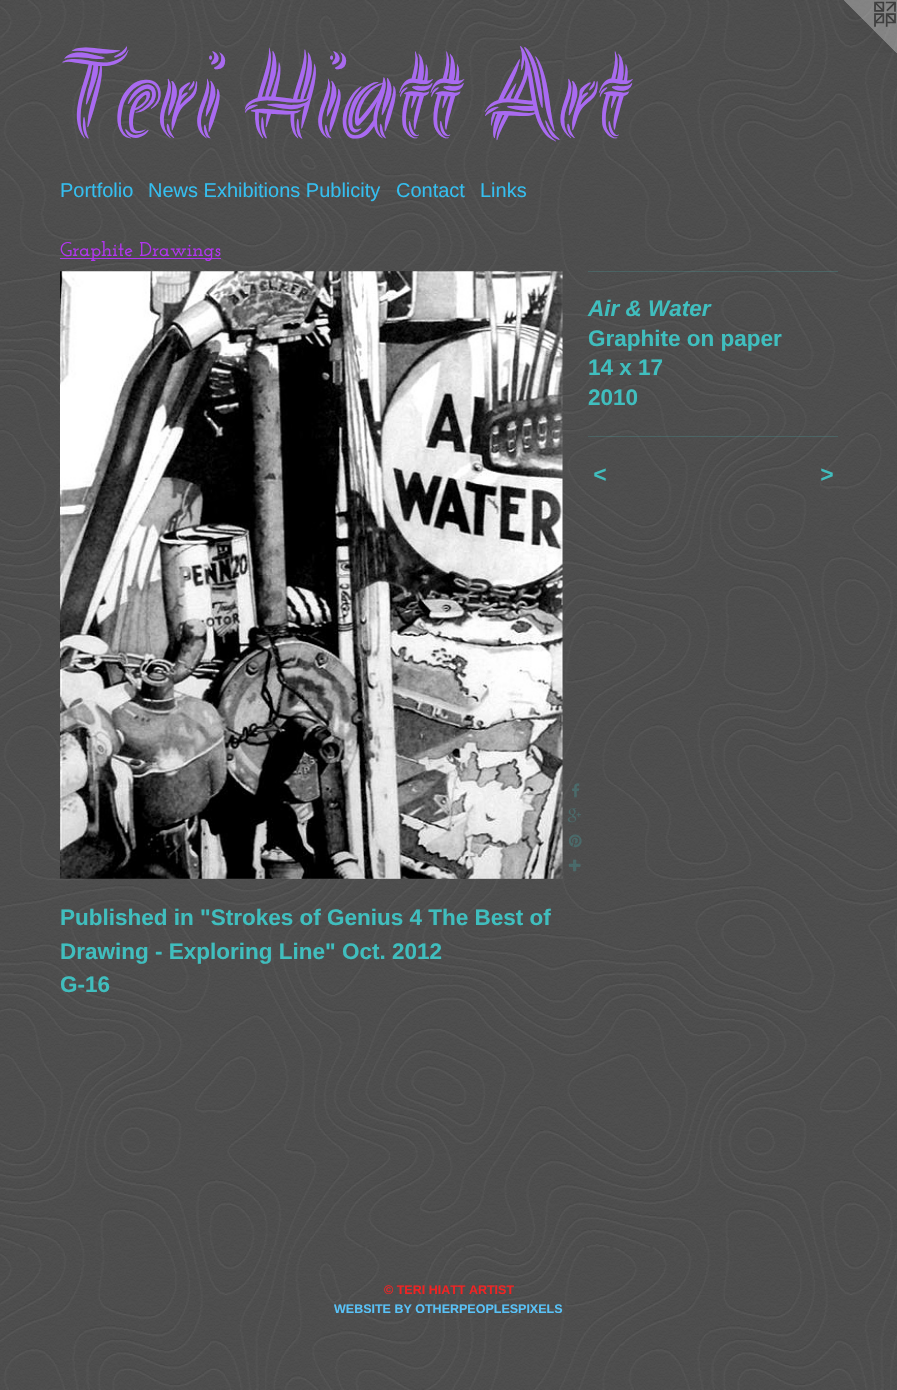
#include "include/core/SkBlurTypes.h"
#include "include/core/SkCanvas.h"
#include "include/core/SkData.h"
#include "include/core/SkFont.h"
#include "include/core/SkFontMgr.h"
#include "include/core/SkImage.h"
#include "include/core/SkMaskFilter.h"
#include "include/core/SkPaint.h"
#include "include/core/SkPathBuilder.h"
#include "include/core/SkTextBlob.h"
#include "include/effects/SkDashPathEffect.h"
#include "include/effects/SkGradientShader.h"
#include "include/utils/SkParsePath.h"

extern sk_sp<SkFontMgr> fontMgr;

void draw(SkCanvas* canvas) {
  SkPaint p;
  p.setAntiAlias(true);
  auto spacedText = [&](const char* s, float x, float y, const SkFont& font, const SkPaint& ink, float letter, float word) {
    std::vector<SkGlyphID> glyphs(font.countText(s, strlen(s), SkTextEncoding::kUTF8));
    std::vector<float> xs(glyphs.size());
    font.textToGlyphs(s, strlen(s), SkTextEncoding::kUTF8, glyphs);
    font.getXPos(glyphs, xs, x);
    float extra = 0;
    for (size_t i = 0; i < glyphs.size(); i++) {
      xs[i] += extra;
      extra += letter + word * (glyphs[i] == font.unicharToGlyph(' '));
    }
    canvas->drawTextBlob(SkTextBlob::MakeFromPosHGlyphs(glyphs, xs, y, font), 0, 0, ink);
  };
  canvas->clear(SK_ColorWHITE);
  canvas->drawImageRect(SkImages::DeferredFromEncodedData(SkData::MakeFromFileName("images/1.png")), SkRect::MakeLTRB(0, 0, 897, 1390), SkSamplingOptions());
  canvas->drawImageRect(SkImages::DeferredFromEncodedData(SkData::MakeFromFileName("images/2.png")), SkRect::MakeLTRB(844, 0, 897, 53), SkSamplingOptions());
  p.setColor(SkColorSetRGB(178, 53, 239));
  canvas->drawRect(SkRect::MakeLTRB(60, 258, 221, 259), p);
  canvas->drawImageRect(SkImages::DeferredFromEncodedData(SkData::MakeFromFileName("images/3.png")), SkRect::MakeLTRB(60, 271, 563, 879), SkSamplingOptions());
  canvas->drawImageRect(SkImages::DeferredFromEncodedData(SkData::MakeFromFileName("images/4.png")), SkRect::MakeLTRB(572, 783, 580, 798), SkSamplingOptions());
  canvas->drawImageRect(SkImages::DeferredFromEncodedData(SkData::MakeFromFileName("images/5.png")), SkRect::MakeLTRB(567, 808, 581, 823), SkSamplingOptions());
  canvas->drawImageRect(SkImages::DeferredFromEncodedData(SkData::MakeFromFileName("images/6.png")), SkRect::MakeLTRB(568, 834, 582, 848), SkSamplingOptions());
  canvas->drawImageRect(SkImages::DeferredFromEncodedData(SkData::MakeFromFileName("images/7.png")), SkRect::MakeLTRB(568, 859, 581, 872), SkSamplingOptions());
  p.setColor(SkColorSetARGB(51, 64, 190, 190));
  canvas->drawRect(SkRect::MakeLTRB(588, 271, 838, 272), p);
  canvas->drawRect(SkRect::MakeLTRB(588, 436, 838, 437), p);
  SkFont font1(fontMgr->matchFamilyStyle("Akronim", SkFontStyle::Normal()), 123.75f);
  font1.setSubpixel(true);
  p.setColor(SkColorSetRGB(169, 106, 241));
  canvas->drawString("Teri Hiatt Art", 60, 138, font1, p);
  SkFont font2(fontMgr->matchFamilyStyle("Liberation Sans", SkFontStyle::Normal()), 20);
  font2.setSubpixel(true);
  p.setColor(SkColorSetRGB(53, 190, 239));
  canvas->drawString("Portfolio", 60, 197, font2, p);
  canvas->drawString("News Exhibitions Publicity", 148, 197, font2, p);
  canvas->drawString("Contact", 396, 197, font2, p);
  canvas->drawString("Links", 480, 197, font2, p);
  SkFont font3(fontMgr->matchFamilyStyle("Josefin Slab", SkFontStyle(100, SkFontStyle::kNormal_Width, SkFontStyle::kUpright_Slant)), 20);
  font3.setSubpixel(true);
  p.setColor(SkColorSetRGB(178, 53, 239));
  canvas->drawString("Graphite Drawings", 60, 256, font3, p);
  SkFont font4(fontMgr->matchFamilyStyle("Liberation Sans", SkFontStyle::BoldItalic()), 22.5f);
  font4.setSubpixel(true);
  p.setColor(SkColorSetRGB(64, 190, 190));
  canvas->drawString("Air & Water", 588, 316, font4, p);
  SkFont font5(fontMgr->matchFamilyStyle("Liberation Sans", SkFontStyle::Bold()), 22.5f);
  font5.setSubpixel(true);
  canvas->drawString("Graphite on paper", 588, 346, font5, p);
  canvas->drawString("14 x 17", 588, 375, font5, p);
  canvas->drawString("2010", 588, 405, font5, p);
  spacedText("<", 593, 482, font4, p, 1, 0);
  spacedText(">", 820, 482, font4, p, 1, 0);
  canvas->drawString("Published in \"Strokes of Genius 4 The Best of", 60, 925, font5, p);
  canvas->drawString("Drawing - Exploring Line\" Oct. 2012", 60, 959, font5, p);
  canvas->drawString("G-16", 60, 992, font5, p);
  SkFont font6(fontMgr->matchFamilyStyle("Liberation Sans", SkFontStyle::Bold()), 12.5f);
  font6.setSubpixel(true);
  p.setColor(SkColorSetRGB(241, 35, 35));
  canvas->drawString("© TERI HIATT ARTIST", 384, 1294, font6, p);
  p.setColor(SkColorSetRGB(89, 194, 247));
  canvas->drawString("WEBSITE BY OTHERPEOPLESPIXELS", 334, 1313, font6, p);
}
